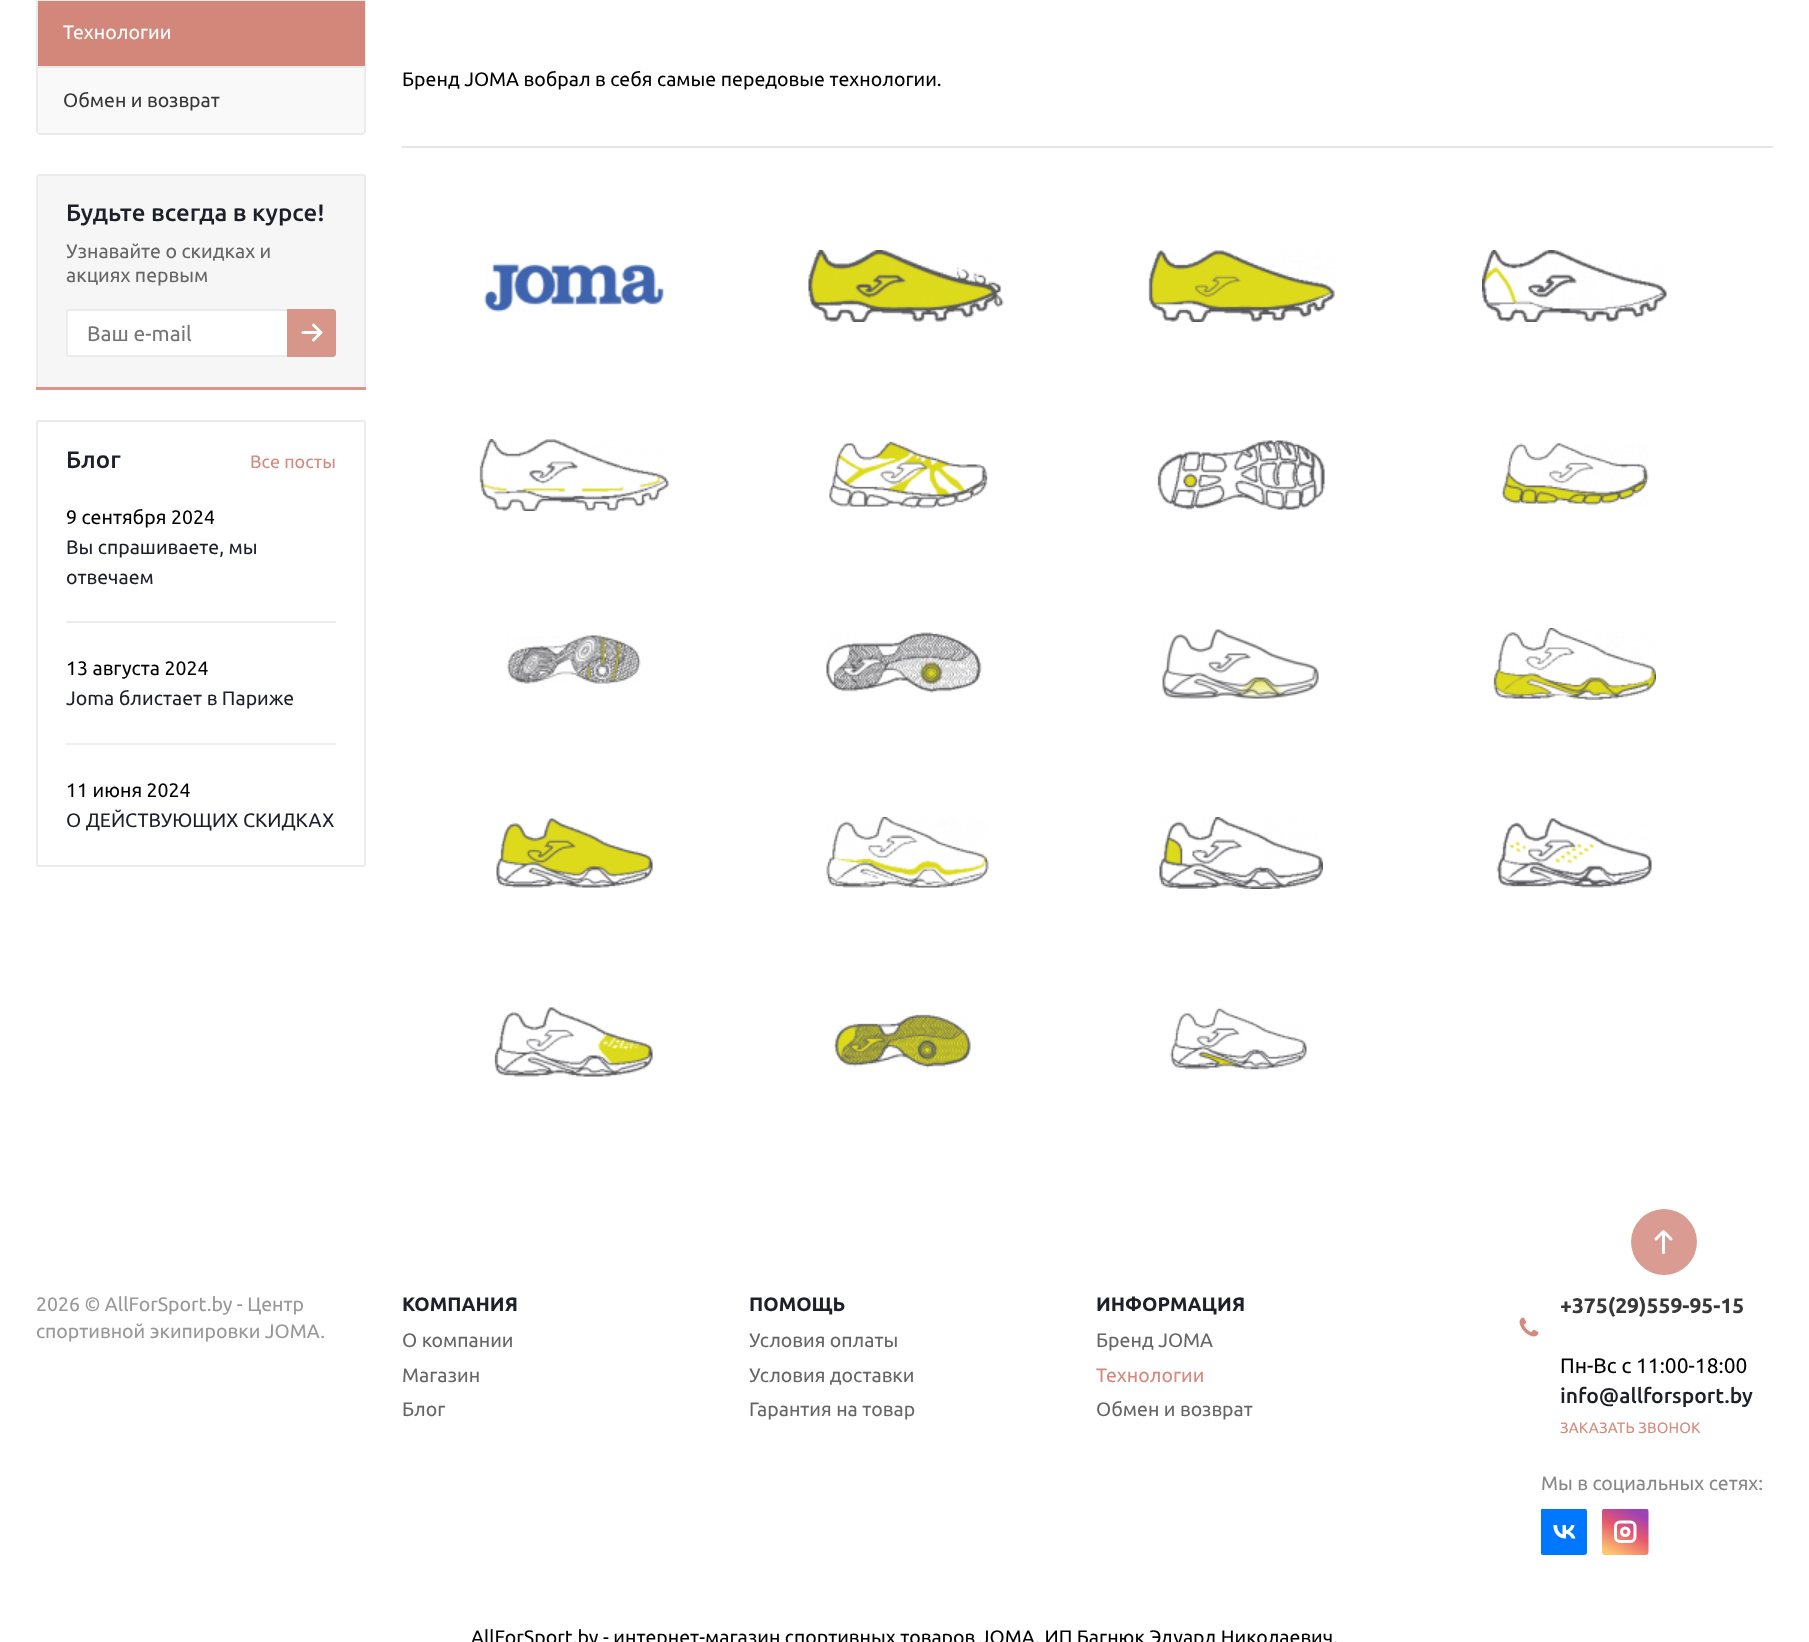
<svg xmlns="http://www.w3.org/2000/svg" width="1809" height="1642">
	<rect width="100%" height="100%" fill="#FFFFFF" />
	<rect x="38" y="1" width="327" height="65" fill="#D3877A" />
	<rect x="36" y="0" width="330" height="1" fill="#EAEBEC" />
	<rect x="365" y="0" width="1" height="66" fill="#EAEBEC" />
	<rect x="36" y="0" width="2" height="66" fill="#EAEBEC" />
	<text x="63" y="39" font-family="Ubuntu" font-size="19.5" fill="#FFFFFF">Технологии</text>
	<path d="M36 66H366V130C366 133 364 135 361 135H41C38 135 36 133 36 130Z" fill="#F9F9F9" />
	<path d="M36 66V130C36 133 38 135 41 135H361C364 135 366 133 366 130V66ZM38 68V133H364V68Z" fill="#EAEBEC" fill-rule="evenodd" />
	<text x="63" y="107" font-family="Ubuntu" font-size="19.5" fill="#383838">Обмен и возврат</text>
	<path d="M39 175H363C364 175 365 176 365 177V389H37V177C37 176 38 175 39 175Z" fill="#F6F6F7" stroke="#EAEBEC" stroke-width="2" />
	<text x="66" y="221" font-family="Ubuntu" font-size="24" font-weight="500" fill="#1D2029">Будьте всегда в курсе!</text>
	<g font-family="Ubuntu" font-size="19.5" fill="#666666">
		<text x="66" y="258">Узнавайте о скидках и</text>
		<text x="66" y="282">акциях первым</text>
	</g>
	<rect x="67" y="310" width="268" height="46" rx="2" fill="#FFFFFF" stroke="#EAEBEC" stroke-width="2" />
	<text x="87" y="341" font-family="Ubuntu" font-size="21" fill="#757575">Ваш e-mail</text>
	<path d="M287 309H333C334.5 309 336 310.5 336 312V354C336 355.5 334.5 357 333 357H287Z" fill="#D8958A" />
	<image x="301" y="323" width="22" height="19" href="assets/img1.png" />
	<rect x="36" y="387" width="330" height="3" fill="#D8958A" />
	<rect x="37" y="421" width="328" height="445" rx="2" fill="none" stroke="#EAEBEC" stroke-width="2" />
	<text x="66" y="468" font-family="Ubuntu" font-size="24" font-weight="500" fill="#1D2029">Блог</text>
	<text x="250" y="468" font-family="Ubuntu" font-size="18" fill="#D48A7E">Все посты</text>
	<rect x="66" y="621" width="270" height="2" fill="#EBEEF1" />
	<text x="66" y="524" font-family="Ubuntu" font-size="19.5" fill="#000000">9 сентября 2024</text>
	<g font-family="Ubuntu" font-size="19.5" fill="#1D2029">
		<text x="66" y="554">Вы спрашиваете, мы</text>
		<text x="66" y="584">отвечаем</text>
	</g>
	<rect x="66" y="743" width="270" height="2" fill="#EBEEF1" />
	<text x="66" y="675" font-family="Ubuntu" font-size="19.5" fill="#000000">13 августа 2024</text>
	<text x="66" y="705" font-family="Ubuntu" font-size="19.5" fill="#1D2029">Joma блистает в Париже</text>
	<text x="66" y="797" font-family="Ubuntu" font-size="19.5" fill="#000000">11 июня 2024</text>
	<text x="66" y="827" font-family="Ubuntu" font-size="19.5" fill="#1D2029">О ДЕЙСТВУЮЩИХ СКИДКАХ</text>
	<text x="402" y="86" font-family="Ubuntu" font-size="19.5" fill="#000000">Бренд JOMA вобрал в себя самые передовые технологии.</text>
	<rect x="402" y="146" width="1371" height="2" fill="#E5E5E5" />
	<image x="484" y="263" width="181" height="49" href="assets/img2.png" />
	<image x="808" y="250" width="196" height="72" href="assets/img3.png" />
	<image x="1148" y="250" width="187" height="72" href="assets/img4.png" />
	<image x="1482" y="250" width="185" height="72" href="assets/img5.png" />
	<image x="479" y="439" width="190" height="72" href="assets/img6.png" />
	<image x="829" y="441" width="159" height="68" href="assets/img7.png" />
	<image x="1157" y="440" width="168" height="70" href="assets/img8.png" />
	<image x="1501" y="442" width="148" height="64" href="assets/img9.png" />
	<image x="506" y="635" width="135" height="49" href="assets/img10.png" />
	<image x="826" y="632" width="156" height="61" href="assets/img11.png" />
	<image x="1162" y="629" width="157" height="70" href="assets/img12.png" />
	<image x="1493" y="628" width="163" height="72" href="assets/img13.png" />
	<image x="496" y="818" width="157" height="70" href="assets/img14.png" />
	<image x="826" y="817" width="163" height="71" href="assets/img15.png" />
	<image x="1159" y="817" width="164" height="72" href="assets/img16.png" />
	<image x="1496" y="818" width="156" height="70" href="assets/img17.png" />
	<image x="494" y="1007" width="159" height="70" href="assets/img18.png" />
	<image x="833" y="1014" width="138" height="54" href="assets/img19.png" />
	<image x="1169" y="1007" width="138" height="63" href="assets/img20.png" />
	<circle cx="1664" cy="1242" r="33" fill="#DA9C92" />
	<path d="M1663.5 1231.5V1252.5M1656 1239L1663.5 1231.5L1671 1239" fill="none" stroke="#FFFFFF" stroke-width="3" stroke-linecap="round" stroke-linejoin="round" />
	<g font-family="Ubuntu" font-size="19.5" fill="#989898">
		<text x="36" y="1311">2026 © AllForSport.by - Центр</text>
		<text x="36" y="1338">спортивной экипировки JOMA.</text>
	</g>
	<g font-family="Ubuntu" font-size="19.5" font-weight="700" fill="#1D2029">
		<text x="402" y="1311">КОМПАНИЯ</text>
		<text x="749" y="1311">ПОМОЩЬ</text>
		<text x="1096" y="1311">ИНФОРМАЦИЯ</text>
	</g>
	<g font-family="Ubuntu" font-size="19.5" fill="#666666">
		<text x="402" y="1347">О компании</text>
		<text x="402" y="1382">Магазин</text>
		<text x="402" y="1416">Блог</text>
		<text x="749" y="1347">Условия оплаты</text>
		<text x="749" y="1382">Условия доставки</text>
		<text x="749" y="1416">Гарантия на товар</text>
		<text x="1096" y="1347">Бренд JOMA</text>
	</g>
	<text x="1096" y="1382" font-family="Ubuntu" font-size="19.5" fill="#D48A7E">Технологии</text>
	<text x="1096" y="1416" font-family="Ubuntu" font-size="19.5" fill="#666666">Обмен и возврат</text>
	<image x="1519" y="1317" width="20" height="20" href="assets/img21.png" />
	<text x="1560" y="1313" font-family="Ubuntu" font-size="21" font-weight="700" fill="#383838">+375(29)559-95-15</text>
	<text x="1560" y="1373" font-family="Ubuntu" font-size="21" fill="#000000">Пн-Вс с 11:00-18:00</text>
	<text x="1560" y="1403" font-family="Ubuntu" font-size="21" font-weight="500" fill="#1D2029">info@allforsport.by</text>
	<text x="1560" y="1433" font-family="Ubuntu" font-size="15" letter-spacing="0.1" fill="#D48A7E">ЗАКАЗАТЬ ЗВОНОК</text>
	<text x="1541" y="1490" font-family="Ubuntu" font-size="19.5" fill="#888888">Мы в социальных сетях:</text>
	<image x="1541" y="1509" width="46" height="46" href="assets/img22.png" />
	<image x="1602" y="1509" width="47" height="46" href="assets/img23.png" />
	<text x="471" y="1644" font-family="Ubuntu" font-size="19.5" fill="#000000">AllForSport.by - интернет-магазин спортивных товаров JOMA. ИП Багнюк Эдуард Николаевич.</text>
</svg>
